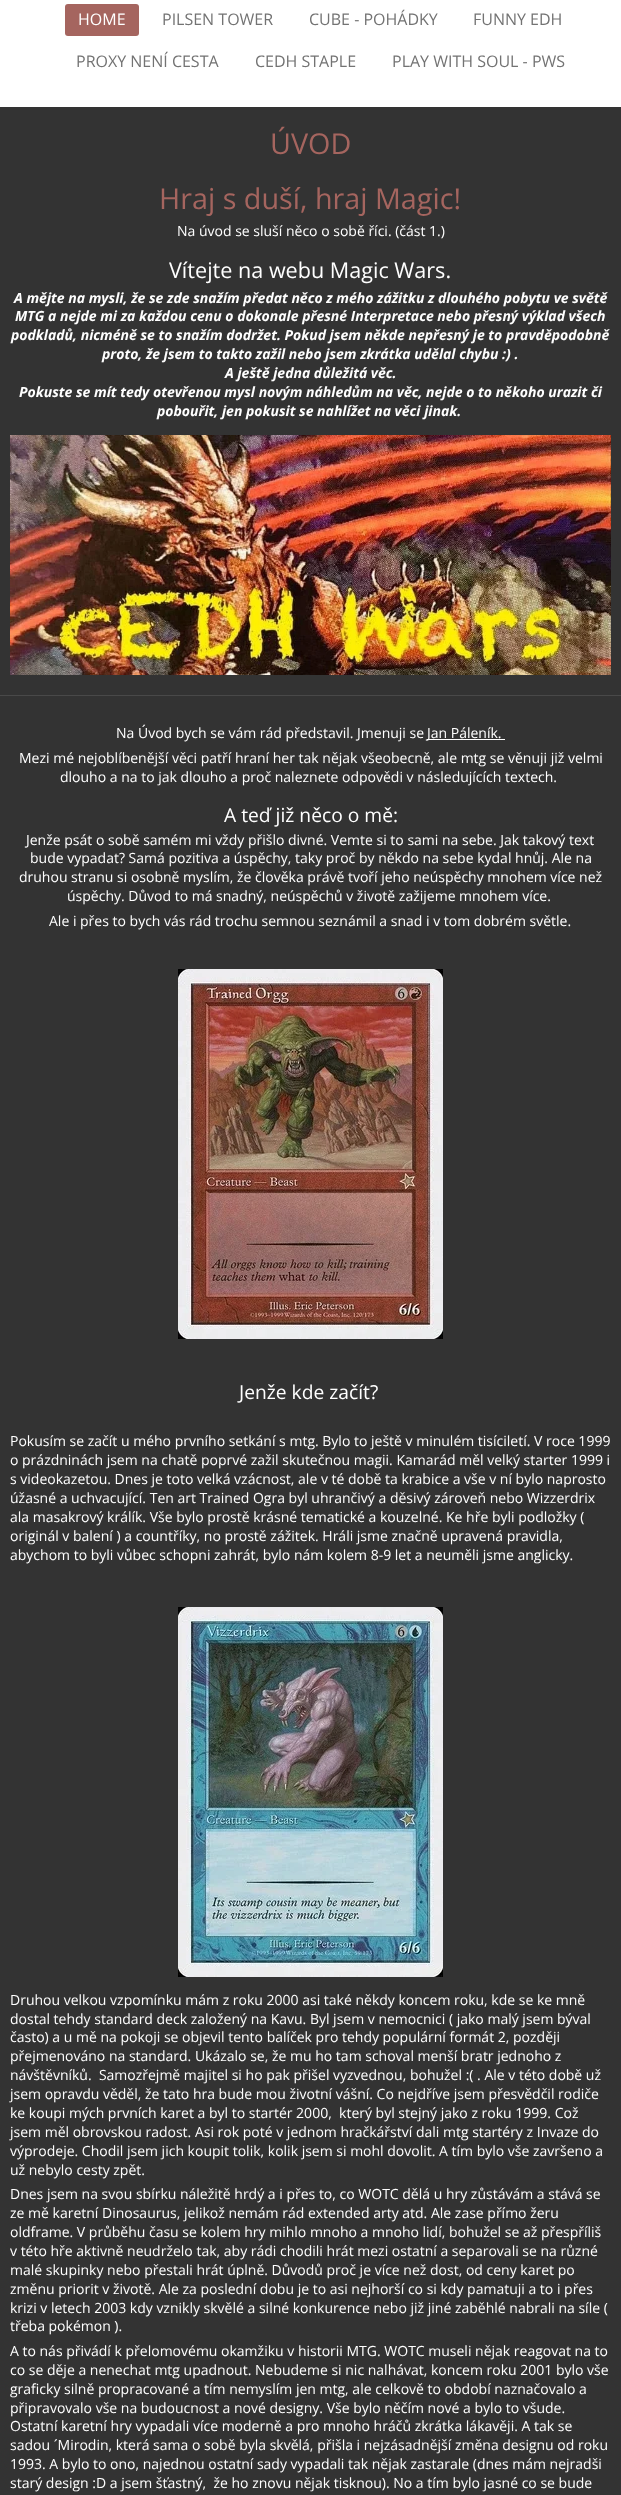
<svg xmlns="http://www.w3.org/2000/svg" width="621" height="2495">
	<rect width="100%" height="100%" fill="#FFFFFF" />
	<rect x="65" y="4" width="74" height="32" rx="3" fill="#A5655F" />
	<text x="78" y="25" font-family="Open Sans" font-size="16" fill="#FFFFFF">HOME</text>
	<g font-family="Open Sans" font-size="16" fill="#737373">
		<text x="162" y="25">PILSEN TOWER</text>
		<text x="309" y="25">CUBE - POHÁDKY</text>
		<text x="473" y="25">FUNNY EDH</text>
		<text x="76" y="67">PROXY NENÍ CESTA</text>
		<text x="255" y="67">CEDH STAPLE</text>
		<text x="392" y="67">PLAY WITH SOUL - PWS</text>
	</g>
	<rect x="0" y="107" width="621" height="588" fill="#333333" />
	<g font-family="Open Sans" font-size="28.75" fill="#A5655F">
		<text x="270" y="154">ÚVOD</text>
		<text x="159" y="209">Hraj s duší, hraj Magic!</text>
	</g>
	<text x="177" y="236" font-family="Open Sans" font-size="14" fill="#FFFFFF">Na úvod se sluší něco o sobě říci. (část 1.)</text>
	<text x="169" y="278" font-family="Open Sans" font-size="21.6" fill="#FFFFFF">Vítejte na webu Magic Wars.</text>
	<g font-family="Open Sans" font-size="14" font-weight="700" font-style="italic" fill="#FFFFFF">
		<text x="14" y="303">A mějte na mysli, že se zde snažím předat něco z mého zážitku z dlouhého pobytu ve světě</text>
		<text x="15" y="321">MTG a nejde mi za každou cenu o dokonale přesné Interpretace nebo přesný výklad všech</text>
		<text x="11" y="340">podkladů, nicméně se to snažím dodržet. Pokud jsem někde nepřesný je to pravděpodobně</text>
		<text x="102" y="359">proto, že jsem to takto zažil nebo jsem zkrátka udělal chybu :) .</text>
		<text x="225" y="378">A ještě jedna důležitá věc.</text>
		<text x="19" y="397">Pokuste se mít tedy otevřenou mysl novým náhledům na věc, nejde o to někoho urazit či</text>
		<text x="157" y="416">pobouřit, jen pokusit se nahlížet na věci jinak.</text>
	</g>
	<image x="10" y="435" width="601" height="240" href="assets/img1.png" />
	<rect x="0" y="696" width="621" height="1799" fill="#333333" />
	<rect x="0" y="695" width="621" height="1" fill="#494949" />
	<text x="116" y="738" font-family="Open Sans" font-size="14" fill="#FFFFFF">Na Úvod bych se vám rád představil. Jmenuji se</text>
	<rect x="427" y="739" width="78" height="1" fill="#FFFFFF" />
	<g font-family="Open Sans" font-size="14" fill="#FFFFFF">
		<text x="427" y="738">Jan Páleník.</text>
		<text x="19" y="763">Mezi mé nejoblíbenější věci patří hraní her tak nějak všeobecně, ale mtg se věnuji již velmi</text>
		<text x="60" y="782">dlouho a na to jak dlouho a proč naleznete odpovědi v následujících textech.</text>
	</g>
	<text x="224" y="822" font-family="Open Sans" font-size="19.25" fill="#FFFFFF">A teď již něco o mě:</text>
	<g font-family="Open Sans" font-size="14" fill="#FFFFFF">
		<text x="26" y="845">Jenže psát o sobě samém mi vždy přišlo divné. Vemte si to sami na sebe. Jak takový text</text>
		<text x="30" y="863">bude vypadat? Samá pozitiva a úspěchy, taky proč by někdo na sebe kydal hnůj. Ale na</text>
		<text x="19" y="882">druhou stranu si osobně myslím, že člověka právě tvoří jeho neúspěchy mnohem více než</text>
		<text x="67" y="901">úspěchy. Důvod to má snadný, neúspěchů v životě zažijeme mnohem více.</text>
		<text x="49" y="926">Ale i přes to bych vás rád trochu semnou seznámil a snad i v tom dobrém světle.</text>
	</g>
	<image x="178" y="969" width="265" height="370" href="assets/img2.png" />
	<text x="239" y="1399" font-family="Open Sans" font-size="19.25" fill="#FFFFFF">Jenže kde začít?</text>
	<g font-family="Open Sans" font-size="14" fill="#FFFFFF">
		<text x="10" y="1446">Pokusím se začít u mého prvního setkání s mtg. Bylo to ještě v minulém tisíciletí. V roce 1999</text>
		<text x="10" y="1465">o prázdninách jsem na chatě poprvé zažil skutečnou magii. Kamarád měl velký starter 1999 i</text>
		<text x="10" y="1484">s videokazetou. Dnes je toto velká vzácnost, ale v té době ta krabice a vše v ní bylo naprosto</text>
		<text x="10" y="1503">úžasné a uchvacující. Ten art Trained Ogra byl uhrančivý a děsivý zároveň nebo Wizzerdrix</text>
		<text x="10" y="1522">ala masakrový králík. Vše bylo prostě krásné tematické a kouzelné. Ke hře byli podložky (</text>
		<text x="10" y="1541">originál v balení ) a countříky, no prostě zážitek. Hráli jsme značně upravená pravidla,</text>
		<text x="10" y="1560">abychom to byli vůbec schopni zahrát, bylo nám kolem 8-9 let a neuměli jsme anglicky.</text>
	</g>
	<image x="178" y="1607" width="265" height="370" href="assets/img3.png" />
	<g font-family="Open Sans" font-size="14" fill="#FFFFFF">
		<text x="10" y="2005">Druhou velkou vzpomínku mám z roku 2000 asi také někdy koncem roku, kde se ke mně</text>
		<text x="10" y="2024">dostal tehdy standard deck založený na Kavu. Byl jsem v nemocnici ( jako malý jsem býval</text>
		<text x="10" y="2042">často) a u mě na pokoji se objevil tento balíček pro tehdy populární formát 2, později</text>
		<text x="10" y="2061">přejmenováno na standard. Ukázalo se, že mu ho tam schoval menší bratr jednoho z</text>
		<text x="10" y="2080" xml:space="preserve">návštěvníků.  Samozřejmě majitel si ho pak přišel vyzvednou, bohužel :( . Ale v této době už</text>
		<text x="10" y="2099">jsem opravdu věděl, že tato hra bude mou životní vášní. Co nejdříve jsem přesvědčil rodiče</text>
		<text x="10" y="2118" xml:space="preserve">ke koupi mých prvních karet a byl to startér 2000,  který byl stejný jako z roku 1999. Což</text>
		<text x="10" y="2137">jsem měl obrovskou radost. Asi rok poté v jednom hračkářství dali mtg startéry z Invaze do</text>
		<text x="10" y="2156">výprodeje. Chodil jsem jich koupit tolik, kolik jsem si mohl dovolit. A tím bylo vše završeno a</text>
		<text x="10" y="2175">už nebylo cesty zpět.</text>
		<text x="10" y="2199">Dnes jsem na svou sbírku náležitě hrdý a i přes to, co WOTC dělá u hry zůstávám a stává se</text>
		<text x="10" y="2218">ze mě karetní Dinosaurus, jelikož nemám rád extended arty atd. Ale zase přímo žeru</text>
		<text x="10" y="2237">oldframe. V průběhu času se kolem hry mihlo mnoho a mnoho lidí, bohužel se až přespříliš</text>
		<text x="10" y="2256">v této hře aktivně neudrželo tak, aby rádi chodili hrát mezi ostatní a separovali se na různé</text>
		<text x="10" y="2275">malé skupinky nebo přestali hrát úplně. Důvodů proč je více než dost, od ceny karet po</text>
		<text x="10" y="2294">změnu priorit v životě. Ale za poslední dobu je to asi nejhorší co si kdy pamatuji a to i přes</text>
		<text x="10" y="2313">krizi v letech 2003 kdy vznikly skvělé a silné konkurence nebo již jiné zaběhlé nabrali na síle (</text>
		<text x="10" y="2331">třeba pokémon ).</text>
		<text x="10" y="2356">A to nás přivádí k přelomovému okamžiku v historii MTG. WOTC museli nějak reagovat na to</text>
		<text x="10" y="2375">co se děje a nenechat mtg upadnout. Nebudeme si nic nalhávat, koncem roku 2001 bylo vše</text>
		<text x="10" y="2394">graficky silně propracované a tím nemyslím jen mtg, ale celkově to období naznačovalo a</text>
		<text x="10" y="2413">připravovalo vše na budoucnost a nové designy. Vše bylo něčím nové a bylo to všude.</text>
		<text x="10" y="2431">Ostatní karetní hry vypadali více moderně a pro mnoho hráčů zkrátka lákavěji. A tak se</text>
		<text x="10" y="2450">sadou ´Mirodin, která sama o sobě byla skvělá, přišla i nejzásadnější změna designu od roku</text>
		<text x="10" y="2469">1993. A bylo to ono, najednou ostatní sady vypadali tak nějak zastarale (dnes mám nejradši</text>
		<text x="10" y="2488" xml:space="preserve">starý design :D a jsem šťastný,  že ho znovu nějak tisknou). No a tím bylo jasné co se bude</text>
	</g>
</svg>
